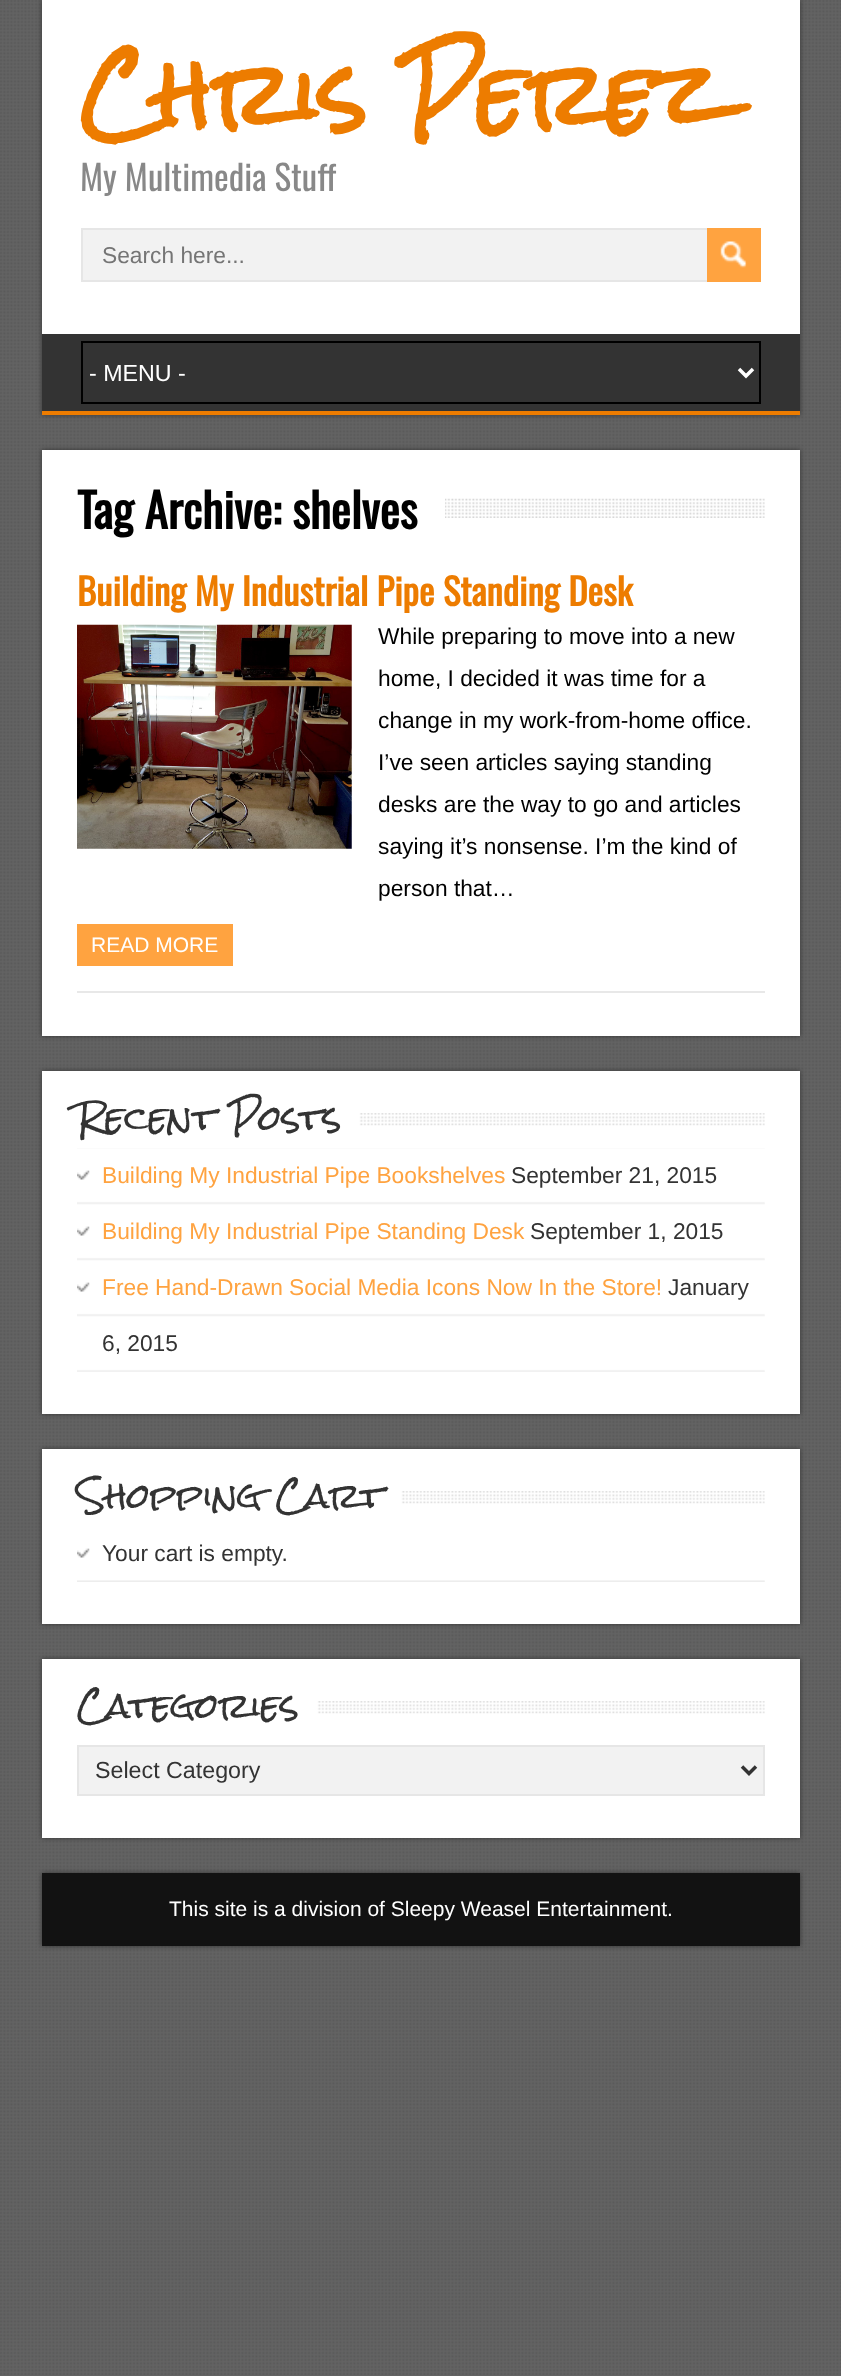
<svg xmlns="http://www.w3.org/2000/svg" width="841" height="2376">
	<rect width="100%" height="100%" fill="#636363" />
	<image x="0" y="0" width="841" height="2375" href="assets/img1.png" />
	<rect x="42" y="0" width="758" height="415" fill="#333333" filter="blur(2.5px)" />
	<rect x="42" y="0" width="758" height="334" fill="#FFFFFF" />
	<text x="80" y="128" font-family="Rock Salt" font-size="84" font-weight="700" fill="#ED7C00">Chris Perez</text>
	<text x="80" y="191" font-family="Oswald" font-size="35" fill="#888888">My Multimedia Stuff</text>
	<rect x="83" y="230" width="624" height="50" fill="#F2F2F2" />
	<rect x="82" y="229" width="675" height="52" fill="none" stroke="#E6E6E6" stroke-width="2" />
	<text x="102" y="263" font-family="Liberation Sans" font-size="22.75" fill="#757575">Search here...</text>
	<rect x="707" y="228" width="54" height="54" fill="#FFA340" />
	<image x="720" y="241" width="27" height="27" href="assets/img2.png" />
	<rect x="42" y="334" width="758" height="77" fill="#333333" />
	<rect x="42" y="411" width="758" height="4" fill="#ED7C00" />
	<rect x="82" y="342" width="678" height="61" fill="none" stroke="#000000" stroke-width="2" />
	<path d="M739 369L746 376L753 369" fill="none" stroke="#FFFFFF" stroke-width="3.5" />
	<text x="89" y="381" font-family="Liberation Sans" font-size="23.25" fill="#FFFFFF">- MENU -</text>
	<rect x="42" y="450" width="758" height="586" fill="#333333" filter="blur(2.5px)" />
	<rect x="42" y="450" width="758" height="586" fill="#FFFFFF" />
	<image x="445" y="498" width="320" height="20" href="assets/img3.png" />
	<text x="77" y="529" font-family="Oswald" font-size="47.25" font-weight="700" fill="#000000">Tag Archive: shelves</text>
	<rect x="77" y="991" width="688" height="2" fill="#E8E8E8" />
	<text x="77" y="606" font-family="Oswald" font-size="36.75" font-weight="700" fill="#ED7C00">Building My Industrial Pipe Standing Desk</text>
	<image x="77" y="624" width="275" height="225" href="assets/img4.png" />
	<g font-family="Liberation Sans" font-size="22.75" fill="#000000">
		<text x="378" y="644">While preparing to move into a new</text>
		<text x="378" y="686">home, I decided it was time for a</text>
		<text x="378" y="728">change in my work-from-home office.</text>
		<text x="378" y="770">I’ve seen articles saying standing</text>
		<text x="378" y="812">desks are the way to go and articles</text>
		<text x="378" y="854">saying it’s nonsense. I’m the kind of</text>
		<text x="378" y="896">person that…</text>
	</g>
	<rect x="77" y="924" width="156" height="42" fill="#FFA340" />
	<text x="91" y="952" font-family="Liberation Sans" font-size="21" fill="#FFFFFF">READ MORE</text>
	<rect x="42" y="1071" width="758" height="343" fill="#333333" filter="blur(2.5px)" />
	<rect x="42" y="1071" width="758" height="343" fill="#FFFFFF" />
	<image x="359" y="1113" width="406" height="13" href="assets/img5.png" />
	<text x="77" y="1131" font-family="Rock Salt" font-size="33.25" fill="#333333">Recent Posts</text>
	<image x="77" y="1148" width="688" height="224" href="assets/img6.png" />
	<image x="77" y="1170" width="13" height="10" href="assets/img7.png" />
	<text x="102" y="1183" font-family="Liberation Sans" font-size="22.75" fill="#FFA340">Building My Industrial Pipe Bookshelves</text>
	<text x="511" y="1183" font-family="Liberation Sans" font-size="22.75" fill="#333333">September 21, 2015</text>
	<image x="77" y="1226" width="13" height="10" href="assets/img7.png" />
	<text x="102" y="1239" font-family="Liberation Sans" font-size="22.75" fill="#FFA340">Building My Industrial Pipe Standing Desk</text>
	<text x="530" y="1239" font-family="Liberation Sans" font-size="22.75" fill="#333333">September 1, 2015</text>
	<image x="77" y="1282" width="13" height="10" href="assets/img7.png" />
	<text x="102" y="1295" font-family="Liberation Sans" font-size="22.75" fill="#FFA340">Free Hand-Drawn Social Media Icons Now In the Store!</text>
	<g font-family="Liberation Sans" font-size="22.75" fill="#333333">
		<text x="668" y="1295">January</text>
		<text x="102" y="1351">6, 2015</text>
	</g>
	<rect x="42" y="1449" width="758" height="175" fill="#333333" filter="blur(2.5px)" />
	<rect x="42" y="1449" width="758" height="175" fill="#FFFFFF" />
	<image x="401" y="1491" width="364" height="13" href="assets/img8.png" />
	<text x="77" y="1509" font-family="Rock Salt" font-size="33.25" fill="#333333">Shopping Cart</text>
	<image x="77" y="1580" width="688" height="2" href="assets/img9.png" />
	<image x="77" y="1548" width="13" height="10" href="assets/img7.png" />
	<text x="102" y="1561" font-family="Liberation Sans" font-size="22.75" fill="#333333">Your cart is empty.</text>
	<rect x="42" y="1659" width="758" height="179" fill="#333333" filter="blur(2.5px)" />
	<rect x="42" y="1659" width="758" height="179" fill="#FFFFFF" />
	<image x="317" y="1701" width="448" height="13" href="assets/img10.png" />
	<text x="77" y="1719" font-family="Rock Salt" font-size="33.25" fill="#333333">Categories</text>
	<rect x="78" y="1746" width="686" height="49" fill="#F2F2F2" stroke="#E6E6E6" stroke-width="2" />
	<path d="M742 1766.5L749 1773.5L756 1766.5" fill="none" stroke="#333333" stroke-width="3.5" />
	<text x="95" y="1778" font-family="Liberation Sans" font-size="23.25" fill="#333333">Select Category</text>
	<rect x="42" y="1873" width="758" height="73" fill="#333333" filter="blur(2.5px)" />
	<rect x="42" y="1873" width="758" height="73" fill="#121212" />
	<text x="169" y="1916" font-family="Liberation Sans" font-size="21" fill="#FFFFFF">This site is a division of Sleepy Weasel Entertainment.</text>
</svg>
